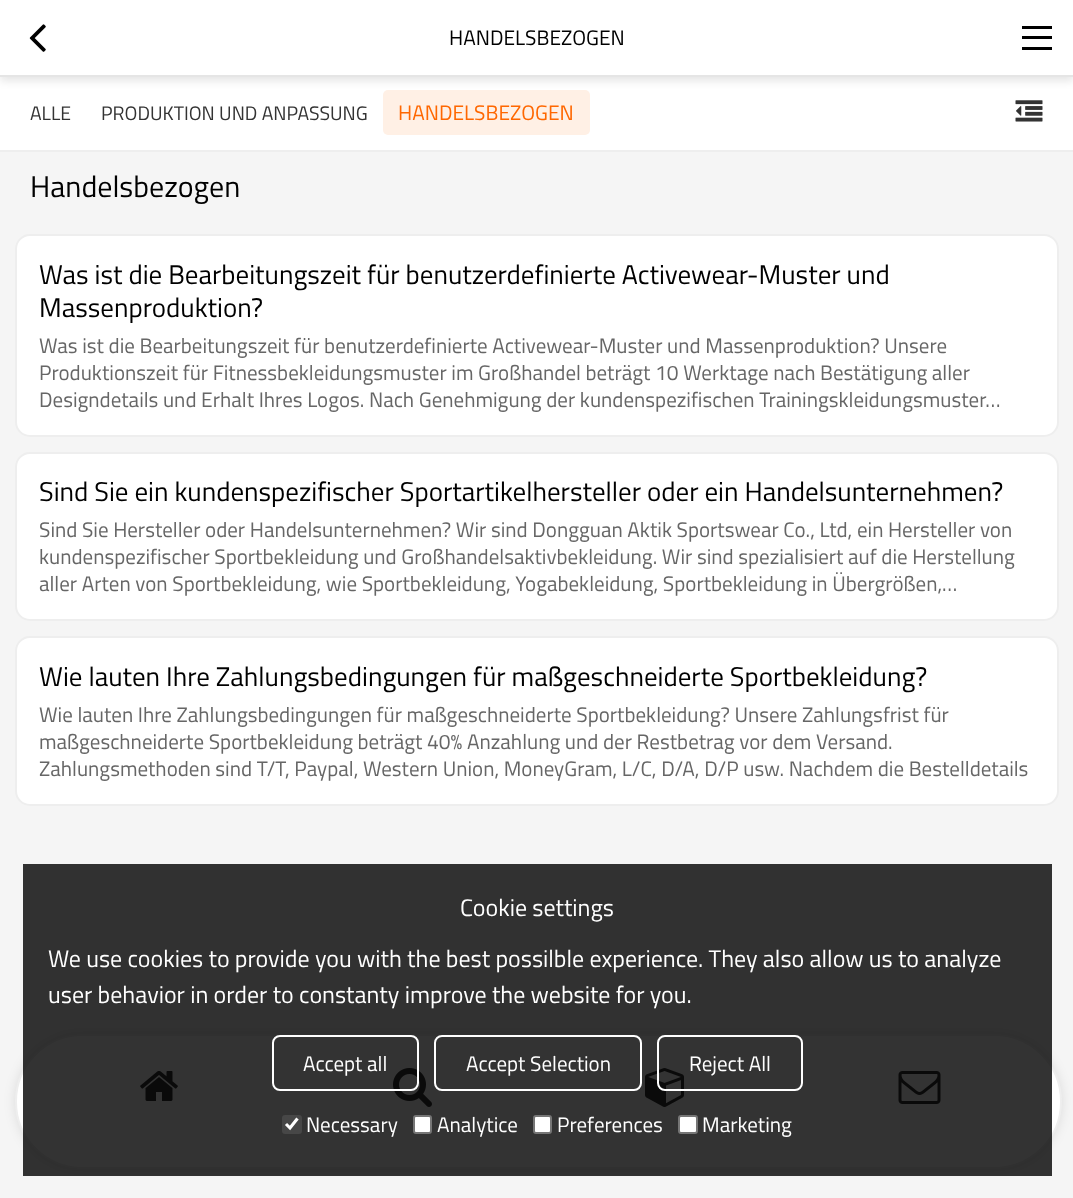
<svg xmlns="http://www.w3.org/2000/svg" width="1073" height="1198">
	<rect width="100%" height="100%" fill="#F5F5F5" />
	<rect x="0" y="77" width="1073" height="73" fill="#FFFFFF" />
	<rect x="383" y="90" width="207" height="45" rx="5" fill="#FFF0E5" />
	<rect x="0" y="5" width="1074" height="76" fill="#000000" fill-opacity="0.1" filter="blur(4px)" />
	<rect x="0" y="0" width="1073" height="75" fill="#FFFFFF" />
	<rect x="0" y="75" width="1073" height="2" fill="#E5E5E5" />
	<image x="29" y="24" width="17" height="28" href="assets/img1.png" />
	<text x="449" y="45" font-family="Titillium Web" font-size="21" fill="#000000">HANDELSBEZOGEN</text>
	<rect x="1022" y="26" width="30" height="3" fill="#000000" />
	<rect x="1022" y="36" width="30" height="3" fill="#000000" />
	<rect x="1022" y="47" width="30" height="3" fill="#000000" />
	<rect x="0" y="150" width="1073" height="2" fill="#EEEEEE" />
	<g font-family="Titillium Web" font-size="19.5" fill="#333333">
		<text x="30" y="120">ALLE</text>
		<text x="101" y="120">PRODUKTION UND ANPASSUNG</text>
	</g>
	<text x="398" y="120" font-family="Titillium Web" font-size="21" fill="#FF6700">HANDELSBEZOGEN</text>
	<image x="1015" y="100" width="28" height="22" href="assets/img2.png" />
	<text x="30" y="197" font-family="Titillium Web" font-size="30" fill="#000000">Handelsbezogen</text>
	<rect x="16" y="235" width="1042" height="201" rx="14" fill="#FFFFFF" stroke="#EEEEEE" stroke-width="2" />
	<g font-family="Titillium Web" font-size="27" fill="#000000">
		<text x="39" y="284">Was ist die Bearbeitungszeit für benutzerdefinierte Activewear-Muster und</text>
		<text x="39" y="317">Massenproduktion?</text>
	</g>
	<g font-family="Titillium Web" font-size="21" fill="#666666">
		<text x="39" y="353">Was ist die Bearbeitungszeit für benutzerdefinierte Activewear-Muster und Massenproduktion? Unsere</text>
		<text x="39" y="380">Produktionszeit für Fitnessbekleidungsmuster im Großhandel beträgt 10 Werktage nach Bestätigung aller</text>
		<text x="39" y="407">Designdetails und Erhalt Ihres Logos. Nach Genehmigung der kundenspezifischen Trainingskleidungsmuster…</text>
	</g>
	<rect x="16" y="453" width="1042" height="167" rx="14" fill="#FFFFFF" stroke="#EEEEEE" stroke-width="2" />
	<text x="39" y="501" font-family="Titillium Web" font-size="27" fill="#000000">Sind Sie ein kundenspezifischer Sportartikelhersteller oder ein Handelsunternehmen?</text>
	<g font-family="Titillium Web" font-size="21" fill="#666666">
		<text x="39" y="537">Sind Sie Hersteller oder Handelsunternehmen? Wir sind Dongguan Aktik Sportswear Co., Ltd, ein Hersteller von</text>
		<text x="39" y="564">kundenspezifischer Sportbekleidung und Großhandelsaktivbekleidung. Wir sind spezialisiert auf die Herstellung</text>
		<text x="39" y="591">aller Arten von Sportbekleidung, wie Sportbekleidung, Yogabekleidung, Sportbekleidung in Übergrößen,…</text>
	</g>
	<rect x="16" y="637" width="1042" height="168" rx="14" fill="#FFFFFF" stroke="#EEEEEE" stroke-width="2" />
	<text x="39" y="686" font-family="Titillium Web" font-size="27" fill="#000000">Wie lauten Ihre Zahlungsbedingungen für maßgeschneiderte Sportbekleidung?</text>
	<g font-family="Titillium Web" font-size="21" fill="#666666">
		<text x="39" y="722">Wie lauten Ihre Zahlungsbedingungen für maßgeschneiderte Sportbekleidung? Unsere Zahlungsfrist für</text>
		<text x="39" y="749">maßgeschneiderte Sportbekleidung beträgt 40% Anzahlung und der Restbetrag vor dem Versand.</text>
		<text x="39" y="776">Zahlungsmethoden sind T/T, Paypal, Western Union, MoneyGram, L/C, D/A, D/P usw. Nachdem die Bestelldetails</text>
	</g>
	<rect x="15" y="1034" width="1047" height="135" rx="67.5" fill="#000000" fill-opacity="0.1" filter="blur(6px)" />
	<rect x="16" y="1035" width="1045" height="133" rx="66.5" fill="#FFFFFF" stroke="#EEEEEE" stroke-width="2" />
	<image x="140" y="1071" width="38" height="30" href="assets/img3.png" />
	<image x="393" y="1068" width="39" height="39" href="assets/img4.png" />
	<image x="645" y="1068" width="39" height="39" href="assets/img5.png" />
	<image x="898" y="1071" width="43" height="33" href="assets/img6.png" />
	<rect x="23" y="864" width="1029" height="312" fill="#000000" fill-opacity="0.8" />
	<g font-family="Titillium Web" font-size="24" fill="#FFFFFF">
		<text x="460" y="916">Cookie settings</text>
		<text x="48" y="967">We use cookies to provide you with the best possilble experience. They also allow us to analyze</text>
		<text x="48" y="1003">user behavior in order to constanty improve the website for you.</text>
	</g>
	<rect x="273" y="1036" width="145" height="54" rx="7" fill="none" stroke="#FFFFFF" stroke-width="2" />
	<text x="303" y="1071" font-family="Titillium Web" font-size="21" fill="#FFFFFF">Accept all</text>
	<rect x="435" y="1036" width="206" height="54" rx="7" fill="none" stroke="#FFFFFF" stroke-width="2" />
	<text x="466" y="1071" font-family="Titillium Web" font-size="21" fill="#FFFFFF">Accept Selection</text>
	<rect x="658" y="1036" width="144" height="54" rx="7" fill="none" stroke="#FFFFFF" stroke-width="2" />
	<text x="689" y="1071" font-family="Titillium Web" font-size="21" fill="#FFFFFF">Reject All</text>
	<rect x="282" y="1115" width="20" height="19" rx="3" fill="#474747" />
	<path d="M286 1124L290 1128L297.5 1118.5" fill="none" stroke="#FFFFFF" stroke-width="3.1" />
	<text x="306" y="1132" font-family="Titillium Web" font-size="21" fill="#FFFFFF">Necessary</text>
	<rect x="414" y="1116" width="17" height="17" rx="2" fill="#FFFFFF" stroke="#767676" stroke-width="2" />
	<text x="437" y="1132" font-family="Titillium Web" font-size="21" fill="#FFFFFF">Analytice</text>
	<rect x="534" y="1116" width="17" height="17" rx="2" fill="#FFFFFF" stroke="#767676" stroke-width="2" />
	<text x="557" y="1132" font-family="Titillium Web" font-size="21" fill="#FFFFFF">Preferences</text>
	<rect x="679" y="1116" width="18" height="17" rx="2" fill="#FFFFFF" stroke="#767676" stroke-width="2" />
	<text x="702" y="1132" font-family="Titillium Web" font-size="21" fill="#FFFFFF">Marketing</text>
</svg>
